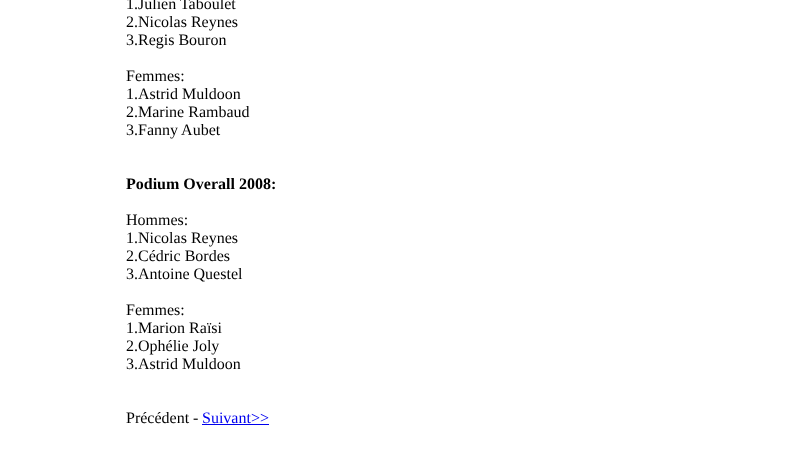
<svg xmlns="http://www.w3.org/2000/svg" width="787" height="474">
	<rect width="100%" height="100%" fill="#FFFFFF" />
	<g font-family="Liberation Serif" font-size="16" fill="#000000">
		<text x="126" y="9">1.Julien Taboulet</text>
		<text x="126" y="27">2.Nicolas Reynes</text>
		<text x="126" y="45">3.Regis Bouron</text>
		<text x="126" y="81">Femmes:</text>
		<text x="126" y="99">1.Astrid Muldoon</text>
		<text x="126" y="117">2.Marine Rambaud</text>
		<text x="126" y="135">3.Fanny Aubet</text>
	</g>
	<text x="126" y="189" font-family="Liberation Serif" font-size="16" font-weight="700" fill="#000000">Podium Overall 2008:</text>
	<g font-family="Liberation Serif" font-size="16" fill="#000000">
		<text x="126" y="225">Hommes:</text>
		<text x="126" y="243">1.Nicolas Reynes</text>
		<text x="126" y="261">2.Cédric Bordes</text>
		<text x="126" y="279">3.Antoine Questel</text>
		<text x="126" y="315">Femmes:</text>
		<text x="126" y="333">1.Marion Raïsi</text>
		<text x="126" y="351">2.Ophélie Joly</text>
		<text x="126" y="369">3.Astrid Muldoon</text>
		<text x="126" y="423">Précédent -</text>
	</g>
	<text x="202" y="423" font-family="Liberation Serif" font-size="16" fill="#0000EE">Suivant&gt;&gt;</text>
	<rect x="202" y="424" width="67" height="1" fill="#0000EE" />
</svg>
